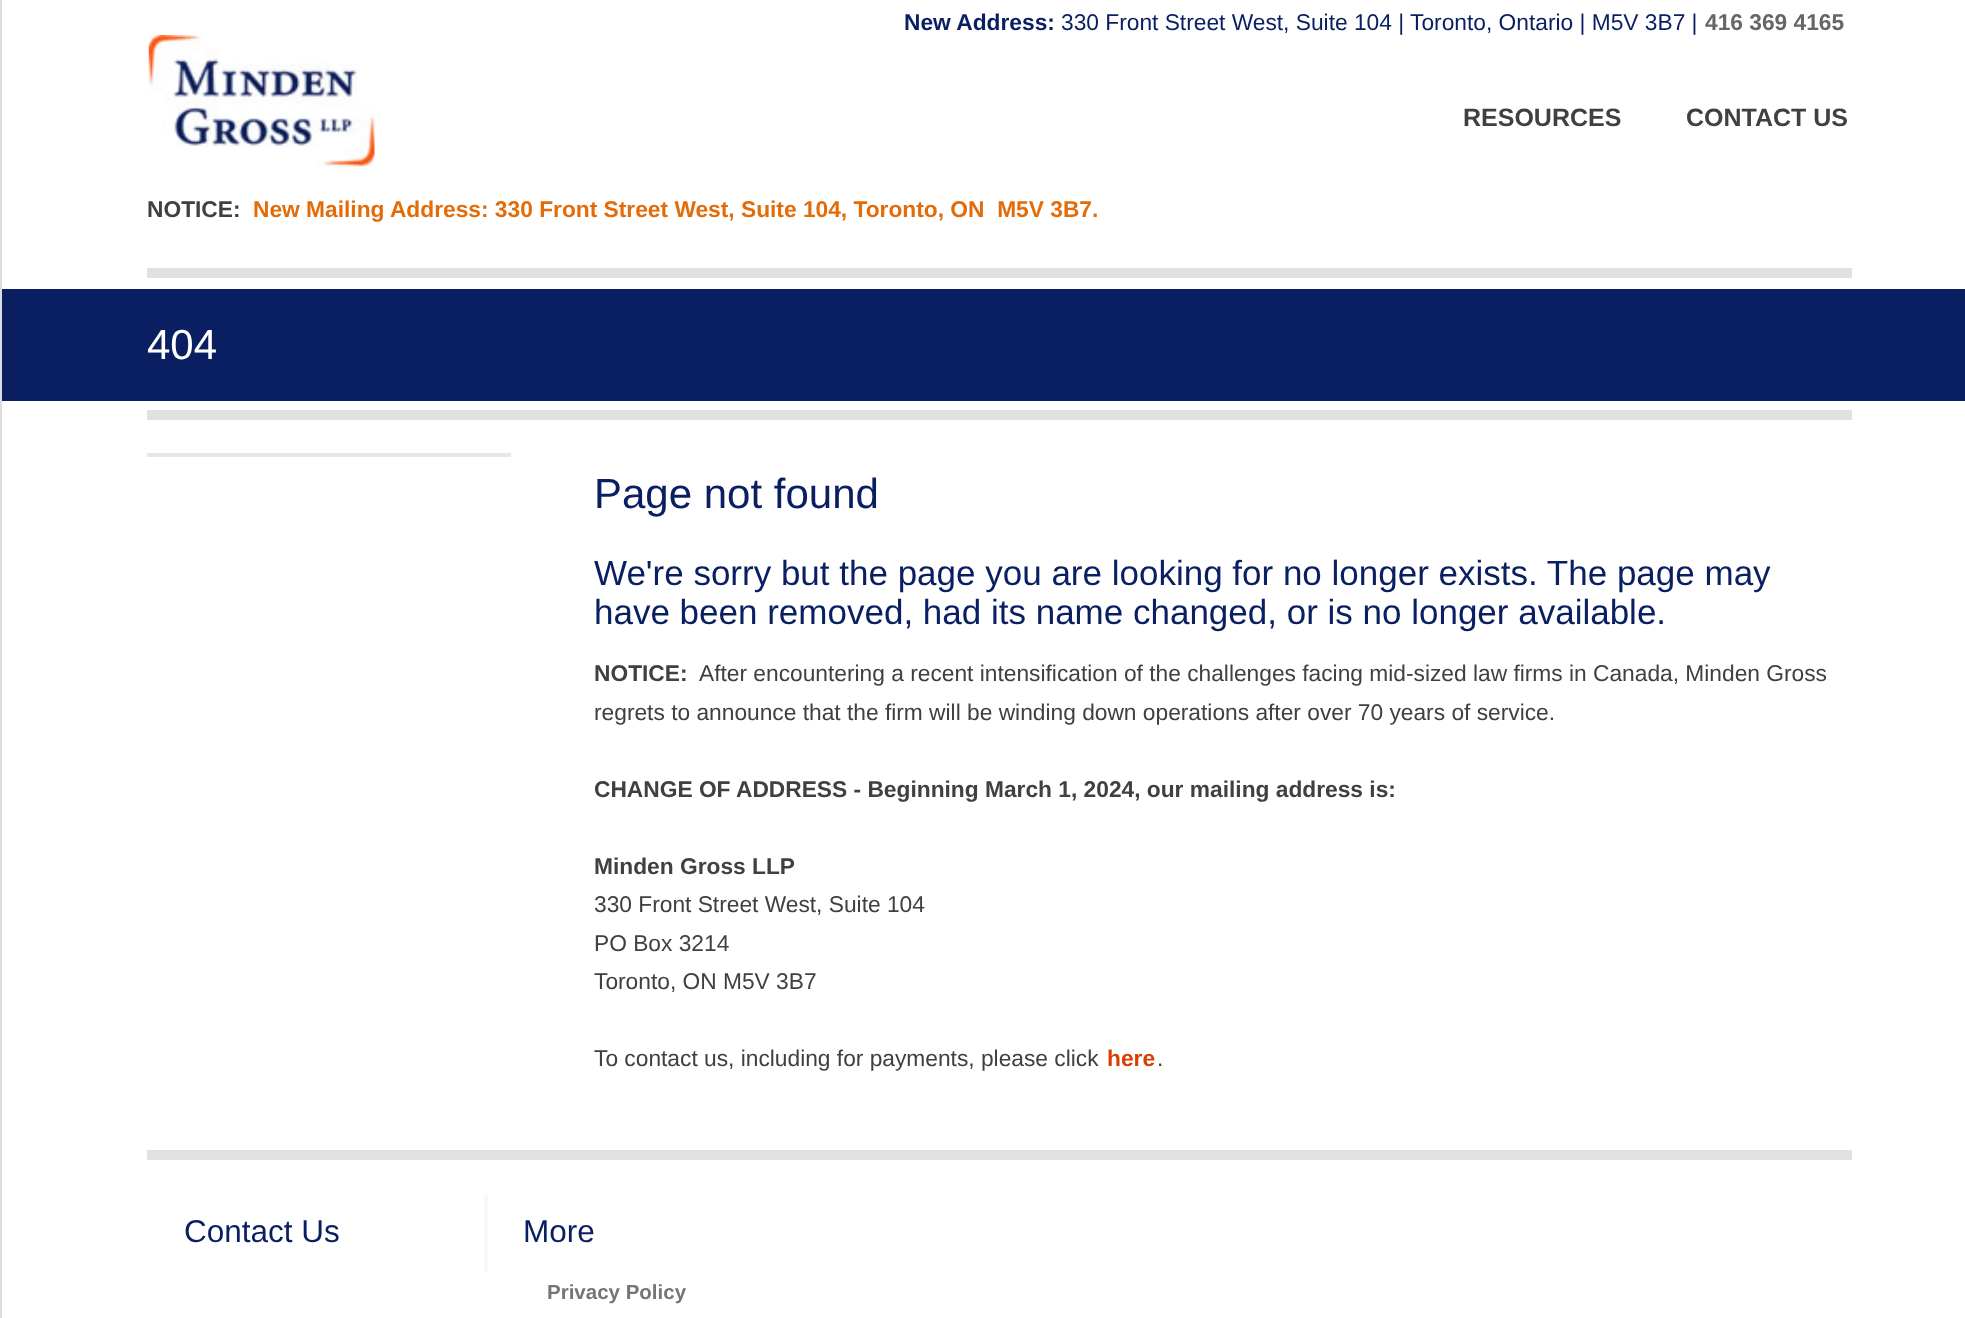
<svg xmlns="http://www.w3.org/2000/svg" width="1965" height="1318">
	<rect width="100%" height="100%" fill="#FFFFFF" />
	<rect x="0" y="0" width="2" height="1318" fill="#DDDDDD" />
	<rect x="147" y="268" width="1705" height="10" fill="#E1E1E1" />
	<image x="148" y="35" width="227" height="132" href="assets/img1.png" />
	<text x="904" y="30" font-family="Liberation Sans" font-size="22.75" font-weight="700" fill="#0A1F62">New Address:</text>
	<text x="1061" y="30" font-family="Liberation Sans" font-size="22.75" fill="#0A1F62">330 Front Street West, Suite 104 | Toronto, Ontario | M5V 3B7 |</text>
	<text x="1705" y="30" font-family="Liberation Sans" font-size="22.75" font-weight="700" fill="#666666">416 369 4165</text>
	<g font-family="Liberation Sans" font-size="25" font-weight="700" fill="#404040">
		<text x="1463" y="126">RESOURCES</text>
		<text x="1686" y="126">CONTACT US</text>
	</g>
	<text x="147" y="217" font-family="Liberation Sans" font-size="22.75" font-weight="700" fill="#404040">NOTICE:</text>
	<text x="253" y="217" font-family="Liberation Sans" font-size="22.75" font-weight="700" fill="#E36C09" xml:space="preserve">New Mailing Address: 330 Front Street West, Suite 104, Toronto, ON  M5V 3B7.</text>
	<rect x="2" y="289" width="1963" height="112" fill="#0A1F62" />
	<text x="147" y="359" font-family="Liberation Sans" font-size="42" fill="#FFFFFF">404</text>
	<rect x="147" y="410" width="1705" height="10" fill="#E1E1E1" />
	<rect x="147" y="453" width="364" height="4" fill="#E6E6E6" />
	<text x="594" y="508" font-family="Liberation Sans" font-size="42" fill="#0A1F62">Page not found</text>
	<g font-family="Liberation Sans" font-size="35" fill="#0A1F62">
		<text x="594" y="585">We're sorry but the page you are looking for no longer exists. The page may</text>
		<text x="594" y="624">have been removed, had its name changed, or is no longer available.</text>
	</g>
	<text x="594" y="681" font-family="Liberation Sans" font-size="22.75" font-weight="700" fill="#404040">NOTICE:</text>
	<g font-family="Liberation Sans" font-size="22.75" fill="#404040">
		<text x="699" y="681">After encountering a recent intensification of the challenges facing mid-sized law firms in Canada, Minden Gross</text>
		<text x="594" y="720">regrets to announce that the firm will be winding down operations after over 70 years of service.</text>
	</g>
	<g font-family="Liberation Sans" font-size="22.75" font-weight="700" fill="#404040">
		<text x="594" y="797">CHANGE OF ADDRESS - Beginning March 1, 2024, our mailing address is:</text>
		<text x="594" y="874">Minden Gross LLP</text>
	</g>
	<g font-family="Liberation Sans" font-size="22.75" fill="#404040">
		<text x="594" y="912">330 Front Street West, Suite 104</text>
		<text x="594" y="951">PO Box 3214</text>
		<text x="594" y="989">Toronto, ON M5V 3B7</text>
		<text x="594" y="1066">To contact us, including for payments, please click</text>
	</g>
	<text x="1107" y="1066" font-family="Liberation Sans" font-size="22.75" font-weight="700" fill="#D93F02">here</text>
	<text x="1157" y="1066" font-family="Liberation Sans" font-size="22.75" fill="#404040">.</text>
	<rect x="147" y="1150" width="1705" height="10" fill="#E1E1E1" />
	<rect x="484" y="1195" width="4" height="77" fill="#F8F8F8" />
	<g font-family="Liberation Sans" font-size="31.5" fill="#0A1F62">
		<text x="184" y="1242">Contact Us</text>
		<text x="523" y="1242">More</text>
	</g>
	<text x="547" y="1299" font-family="Liberation Sans" font-size="20.5" font-weight="700" fill="#757575">Privacy Policy</text>
</svg>
